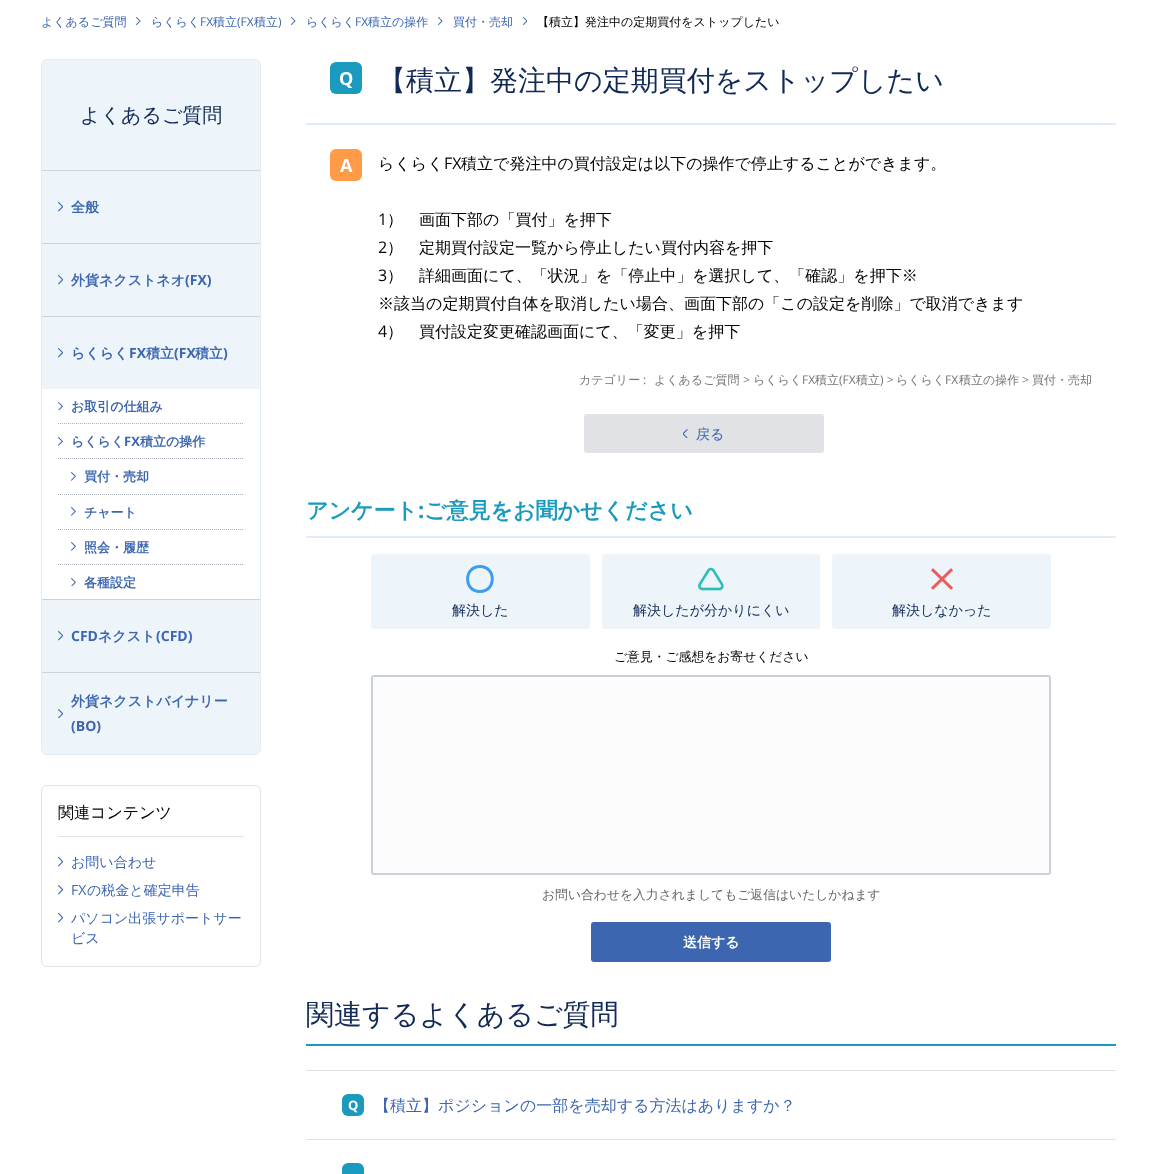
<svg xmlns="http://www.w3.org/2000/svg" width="1162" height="1174">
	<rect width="100%" height="100%" fill="#FFFFFF" />
	<text x="41" y="26" font-family="WenQuanYi Zen Hei" font-size="12" font-weight="500" fill="#3C66B0">よくあるご質問</text>
	<image x="136" y="17" width="5" height="8" href="assets/img1.png" />
	<text x="151" y="26" font-family="WenQuanYi Zen Hei" font-size="12" font-weight="500" fill="#3C66B0">らくらく</text>
	<text x="200" y="26" font-family="Open Sans" font-size="12" fill="#3C66B0">FX</text>
	<text x="213" y="26" font-family="WenQuanYi Zen Hei" font-size="12" font-weight="500" fill="#3C66B0">積立</text>
	<text x="237" y="26" font-family="Open Sans" font-size="12" fill="#3C66B0">(FX</text>
	<text x="254" y="26" font-family="WenQuanYi Zen Hei" font-size="12" font-weight="500" fill="#3C66B0">積立</text>
	<text x="278" y="26" font-family="Open Sans" font-size="12" fill="#3C66B0">)</text>
	<image x="291" y="17" width="5" height="8" href="assets/img1.png" />
	<text x="306" y="26" font-family="WenQuanYi Zen Hei" font-size="12" font-weight="500" fill="#3C66B0">らくらく</text>
	<text x="355" y="26" font-family="Open Sans" font-size="12" fill="#3C66B0">FX</text>
	<text x="368" y="26" font-family="WenQuanYi Zen Hei" font-size="12" font-weight="500" fill="#3C66B0">積立の操作</text>
	<image x="438" y="17" width="5" height="8" href="assets/img1.png" />
	<text x="453" y="26" font-family="WenQuanYi Zen Hei" font-size="12" font-weight="500" fill="#3C66B0">買付・売却</text>
	<image x="523" y="17" width="4" height="8" href="assets/img2.png" />
	<text x="537" y="26" font-family="WenQuanYi Zen Hei" font-size="12" font-weight="500" fill="#000000">【積立】発注中の定期買付をストップしたい</text>
	<rect x="41.5" y="59.5" width="219" height="695" rx="5.5" fill="#EEF5FA" stroke="#DFEDF7" />
	<text x="80" y="122" font-family="WenQuanYi Zen Hei" font-size="20" font-weight="500" fill="#102955">よくあるご質問</text>
	<rect x="42" y="170" width="218" height="1" fill="#CBD4D9" />
	<image x="58" y="202" width="5" height="10" href="assets/img3.png" />
	<text x="71" y="212" font-family="WenQuanYi Zen Hei" font-size="14" font-weight="700" fill="#3C66B0">全般</text>
	<rect x="42" y="243" width="218" height="1" fill="#CBD4D9" />
	<image x="58" y="275" width="5" height="10" href="assets/img3.png" />
	<text x="71" y="285" font-family="WenQuanYi Zen Hei" font-size="14" font-weight="700" fill="#3C66B0">外貨ネクストネオ</text>
	<text x="185" y="285" font-family="Open Sans" font-size="14" font-weight="700" fill="#3C66B0">(FX)</text>
	<rect x="42" y="316" width="218" height="1" fill="#CBD4D9" />
	<image x="58" y="348" width="5" height="10" href="assets/img3.png" />
	<text x="71" y="358" font-family="WenQuanYi Zen Hei" font-size="14" font-weight="700" fill="#3C66B0">らくらく</text>
	<text x="129" y="358" font-family="Open Sans" font-size="14" font-weight="700" fill="#3C66B0">FX</text>
	<text x="146" y="358" font-family="WenQuanYi Zen Hei" font-size="14" font-weight="700" fill="#3C66B0">積立</text>
	<text x="174" y="358" font-family="Open Sans" font-size="14" font-weight="700" fill="#3C66B0">(FX</text>
	<text x="195" y="358" font-family="WenQuanYi Zen Hei" font-size="14" font-weight="700" fill="#3C66B0">積立</text>
	<text x="223" y="358" font-family="Open Sans" font-size="14" font-weight="700" fill="#3C66B0">)</text>
	<rect x="42" y="389" width="218" height="210" fill="#FFFFFF" />
	<image x="58" y="402" width="5" height="8" href="assets/img4.png" />
	<text x="71" y="411" font-family="WenQuanYi Zen Hei" font-size="13" font-weight="700" fill="#3C66B0">お取引の仕組み</text>
	<path d="M58 423.5H244" fill="none" stroke="#A8B0BE" stroke-dasharray="1 1" />
	<image x="58" y="437" width="5" height="9" href="assets/img5.png" />
	<text x="71" y="446" font-family="WenQuanYi Zen Hei" font-size="13" font-weight="700" fill="#3C66B0">らくらく</text>
	<text x="124" y="446" font-family="Open Sans" font-size="13" font-weight="700" fill="#3C66B0">FX</text>
	<text x="140" y="446" font-family="WenQuanYi Zen Hei" font-size="13" font-weight="700" fill="#3C66B0">積立の操作</text>
	<path d="M58 458.5H244" fill="none" stroke="#A8B0BE" stroke-dasharray="1 1" />
	<image x="71" y="472" width="5" height="9" href="assets/img5.png" />
	<text x="84" y="481" font-family="WenQuanYi Zen Hei" font-size="13" font-weight="700" fill="#3C66B0">買付・売却</text>
	<path d="M58 494.5H244" fill="none" stroke="#A8B0BE" stroke-dasharray="1 1" />
	<image x="71" y="507" width="5" height="9" href="assets/img5.png" />
	<text x="84" y="517" font-family="WenQuanYi Zen Hei" font-size="13" font-weight="700" fill="#3C66B0">チャート</text>
	<path d="M58 529.5H244" fill="none" stroke="#A8B0BE" stroke-dasharray="1 1" />
	<image x="71" y="542" width="5" height="9" href="assets/img5.png" />
	<text x="84" y="552" font-family="WenQuanYi Zen Hei" font-size="13" font-weight="700" fill="#3C66B0">照会・履歴</text>
	<path d="M58 564.5H244" fill="none" stroke="#A8B0BE" stroke-dasharray="1 1" />
	<image x="71" y="578" width="5" height="8" href="assets/img4.png" />
	<text x="84" y="587" font-family="WenQuanYi Zen Hei" font-size="13" font-weight="700" fill="#3C66B0">各種設定</text>
	<rect x="42" y="599" width="218" height="1" fill="#CBD4D9" />
	<image x="58" y="631" width="5" height="10" href="assets/img3.png" />
	<text x="71" y="641" font-family="Open Sans" font-size="14" font-weight="700" fill="#3C66B0">CFD</text>
	<text x="98" y="641" font-family="WenQuanYi Zen Hei" font-size="14" font-weight="700" fill="#3C66B0">ネクスト</text>
	<text x="156" y="641" font-family="Open Sans" font-size="14" font-weight="700" fill="#3C66B0">(CFD)</text>
	<rect x="42" y="672" width="218" height="1" fill="#CBD4D9" />
	<text x="71" y="706" font-family="WenQuanYi Zen Hei" font-size="14" font-weight="700" fill="#3C66B0">外貨ネクストバイナリー</text>
	<image x="58" y="709" width="5" height="9" href="assets/img6.png" />
	<text x="71" y="731" font-family="Open Sans" font-size="14" font-weight="700" fill="#3C66B0">(BO)</text>
	<rect x="41.5" y="785.5" width="219" height="181" rx="5.5" fill="none" stroke="#DDE3EB" />
	<rect x="58" y="836" width="186" height="1" fill="#DDE3EB" />
	<text x="58" y="818" font-family="WenQuanYi Zen Hei" font-size="16" font-weight="500" fill="#000000">関連コンテンツ</text>
	<image x="58" y="857" width="5" height="10" href="assets/img7.png" />
	<text x="71" y="867" font-family="WenQuanYi Zen Hei" font-size="14" font-weight="500" fill="#3C66B0">お問い合わせ</text>
	<image x="58" y="885" width="5" height="10" href="assets/img7.png" />
	<text x="71" y="895" font-family="Open Sans" font-size="14" fill="#3C66B0">FX</text>
	<text x="87" y="895" font-family="WenQuanYi Zen Hei" font-size="14" font-weight="500" fill="#3C66B0">の税金と確定申告</text>
	<image x="58" y="913" width="5" height="10" href="assets/img7.png" />
	<g font-family="WenQuanYi Zen Hei" font-size="14" font-weight="500" fill="#3C66B0">
		<text x="71" y="923">パソコン出張サポートサー</text>
		<text x="71" y="943">ビス</text>
	</g>
	<rect x="306" y="123" width="810" height="2" fill="#E2ECF6" />
	<rect x="330" y="62" width="32" height="32" rx="6" fill="#1A9ABE" />
	<text x="339" y="85" font-family="Open Sans" font-size="18" font-weight="700" fill="#FFFFFF">Q</text>
	<text x="378" y="90" font-family="WenQuanYi Zen Hei" font-size="28" font-weight="500" fill="#102955">【積立】発注中の定期買付をストップしたい</text>
	<rect x="330" y="149" width="32" height="32" rx="6" fill="#FF9B46" />
	<text x="340" y="172" font-family="Open Sans" font-size="18" font-weight="700" fill="#FFFFFF">A</text>
	<text x="378" y="169" font-family="WenQuanYi Zen Hei" font-size="16" font-weight="500" fill="#000000">らくらく</text>
	<text x="444" y="169" font-family="Open Sans" font-size="16" fill="#000000">FX</text>
	<text x="461" y="169" font-family="WenQuanYi Zen Hei" font-size="16" font-weight="500" fill="#000000">積立で発注中の買付設定は以下の操作で停止することができます。</text>
	<text x="378" y="225" font-family="Open Sans" font-size="16" fill="#000000">1</text>
	<text x="387" y="225" font-family="WenQuanYi Zen Hei" font-size="16" font-weight="500" fill="#000000">）　画面下部の「買付」を押下</text>
	<text x="378" y="253" font-family="Open Sans" font-size="16" fill="#000000">2</text>
	<text x="387" y="253" font-family="WenQuanYi Zen Hei" font-size="16" font-weight="500" fill="#000000">）　定期買付設定一覧から停止したい買付内容を押下</text>
	<text x="378" y="281" font-family="Open Sans" font-size="16" fill="#000000">3</text>
	<g font-family="WenQuanYi Zen Hei" font-size="16" font-weight="500" fill="#000000">
		<text x="387" y="281">）　詳細画面にて、「状況」を「停止中」を選択して、「確認」を押下※</text>
		<text x="378" y="309">※該当の定期買付自体を取消したい場合、画面下部の「この設定を削除」で取消できます</text>
	</g>
	<text x="378" y="337" font-family="Open Sans" font-size="16" fill="#000000">4</text>
	<text x="387" y="337" font-family="WenQuanYi Zen Hei" font-size="16" font-weight="500" fill="#000000">）　買付設定変更確認画面にて、「変更」を押下</text>
	<text x="579" y="384" font-family="WenQuanYi Zen Hei" font-size="12" font-weight="500" fill="#767676">カテゴリー</text>
	<text x="643" y="384" font-family="Open Sans" font-size="12" fill="#767676">:</text>
	<text x="654" y="384" font-family="WenQuanYi Zen Hei" font-size="12" font-weight="500" fill="#767676">よくあるご質問</text>
	<text x="743" y="384" font-family="Open Sans" font-size="12" fill="#767676">&gt;</text>
	<text x="753" y="384" font-family="WenQuanYi Zen Hei" font-size="12" font-weight="500" fill="#767676">らくらく</text>
	<text x="802" y="384" font-family="Open Sans" font-size="12" fill="#767676">FX</text>
	<text x="815" y="384" font-family="WenQuanYi Zen Hei" font-size="12" font-weight="500" fill="#767676">積立</text>
	<text x="839" y="384" font-family="Open Sans" font-size="12" fill="#767676">(FX</text>
	<text x="856" y="384" font-family="WenQuanYi Zen Hei" font-size="12" font-weight="500" fill="#767676">積立</text>
	<text x="880" y="384" font-family="Open Sans" font-size="12" fill="#767676">) &gt;</text>
	<text x="896" y="384" font-family="WenQuanYi Zen Hei" font-size="12" font-weight="500" fill="#767676">らくらく</text>
	<text x="945" y="384" font-family="Open Sans" font-size="12" fill="#767676">FX</text>
	<text x="959" y="384" font-family="WenQuanYi Zen Hei" font-size="12" font-weight="500" fill="#767676">積立の操作</text>
	<text x="1022" y="384" font-family="Open Sans" font-size="12" fill="#767676">&gt;</text>
	<text x="1032" y="384" font-family="WenQuanYi Zen Hei" font-size="12" font-weight="500" fill="#767676">買付・売却</text>
	<rect x="584" y="414" width="240" height="39" rx="3" fill="#E0E2E5" />
	<image x="683" y="429" width="5" height="9" href="assets/img8.png" />
	<text x="696" y="439" font-family="WenQuanYi Zen Hei" font-size="14" font-weight="500" fill="#3C66B0">戻る</text>
	<rect x="306" y="536" width="810" height="2" fill="#E2ECF6" />
	<text x="306" y="518" font-family="WenQuanYi Zen Hei" font-size="22" font-weight="700" fill="#1A9ABE">アンケート</text>
	<text x="418" y="518" font-family="Open Sans" font-size="22" font-weight="700" fill="#1A9ABE">:</text>
	<text x="424" y="518" font-family="WenQuanYi Zen Hei" font-size="22" font-weight="700" fill="#1A9ABE">ご意見をお聞かせください</text>
	<rect x="371" y="554" width="219" height="75" rx="3" fill="#EEF5FA" />
	<path d="M480 593C461.5 593 461.5 565 480 565C498.5 565 498.5 593 480 593ZM480 568C465.5 568 465.5 590 480 590C494.5 590 494.5 568 480 568Z" fill="#3C9EF0" />
	<text x="452" y="615" font-family="WenQuanYi Zen Hei" font-size="14" font-weight="500" fill="#102955">解決した</text>
	<rect x="602" y="554" width="218" height="75" rx="3" fill="#EEF5FA" />
	<image x="698" y="567" width="26" height="24" href="assets/img9.png" />
	<text x="633" y="615" font-family="WenQuanYi Zen Hei" font-size="14" font-weight="500" fill="#102955">解決したが分かりにくい</text>
	<rect x="832" y="554" width="219" height="75" rx="3" fill="#EEF5FA" />
	<image x="931" y="568" width="22" height="22" href="assets/img10.png" />
	<text x="892" y="615" font-family="WenQuanYi Zen Hei" font-size="14" font-weight="500" fill="#102955">解決しなかった</text>
	<text x="614" y="661" font-family="WenQuanYi Zen Hei" font-size="12.8" font-weight="500" fill="#000000">ご意見・ご感想をお寄せください</text>
	<rect x="372" y="676" width="678" height="198" rx="2" fill="#FCFCFC" stroke="#C9D0DB" stroke-width="2" />
	<text x="542" y="899" font-family="WenQuanYi Zen Hei" font-size="12.8" font-weight="500" fill="#666666">お問い合わせを入力されましてもご返信はいたしかねます</text>
	<rect x="591" y="922" width="240" height="40" rx="3" fill="#3C66B0" />
	<text x="683" y="947" font-family="WenQuanYi Zen Hei" font-size="14" font-weight="700" fill="#FFFFFF">送信する</text>
	<rect x="306" y="1044" width="810" height="2" fill="#1A9ABE" />
	<text x="306" y="1024" font-family="WenQuanYi Zen Hei" font-size="28" font-weight="500" fill="#102955">関連するよくあるご質問</text>
	<rect x="306" y="1070" width="810" height="1" fill="#DEE2E5" />
	<rect x="306" y="1139" width="810" height="1" fill="#DEE2E5" />
	<rect x="342" y="1094" width="22" height="22" rx="6" fill="#1A9ABE" />
	<text x="348" y="1110" font-family="Open Sans" font-size="13" font-weight="700" fill="#FFFFFF">Q</text>
	<text x="374" y="1111" font-family="WenQuanYi Zen Hei" font-size="16" font-weight="500" fill="#3C66B0">【積立】ポジションの一部を売却する方法はありますか？</text>
	<rect x="342" y="1163" width="22" height="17" rx="6" fill="#1A9ABE" />
</svg>
